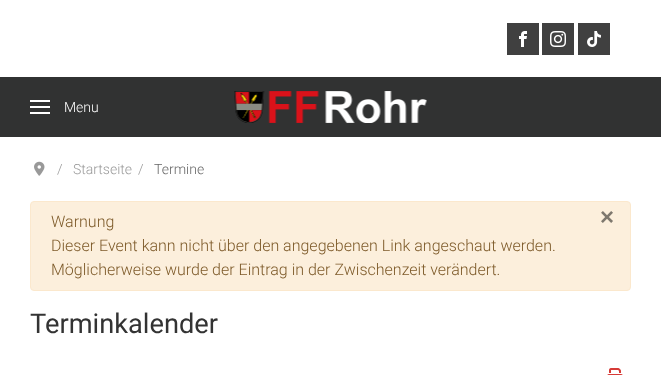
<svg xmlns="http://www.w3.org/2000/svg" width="661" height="375">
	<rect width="100%" height="100%" fill="#FFFFFF" />
	<rect x="507" y="23" width="32" height="32" fill="#404040" />
	<image x="519" y="31" width="8" height="16" href="assets/img1.png" />
	<rect x="542" y="23" width="32" height="32" fill="#404040" />
	<image x="550" y="31" width="16" height="16" href="assets/img2.png" />
	<rect x="578" y="23" width="32" height="32" fill="#404040" />
	<image x="587" y="31" width="14" height="16" href="assets/img3.png" />
	<rect x="0" y="77" width="661" height="60" fill="#313232" />
	<rect x="30" y="100" width="20" height="2" fill="#FFFFFF" />
	<rect x="30" y="106" width="20" height="2" fill="#FFFFFF" />
	<rect x="30" y="112" width="20" height="2" fill="#FFFFFF" />
	<text x="64" y="112" font-family="Roboto" font-size="14" font-weight="300" fill="#FFFFFF">Menu</text>
	<image x="234" y="91" width="193" height="32" href="assets/img4.png" />
	<image x="34" y="161" width="11" height="15" href="assets/img5.png" />
	<g font-family="Roboto" font-size="14" font-weight="300" fill="#999999">
		<text x="57" y="174">/</text>
		<text x="73" y="174">Startseite</text>
		<text x="138" y="174">/</text>
	</g>
	<text x="154" y="174" font-family="Roboto" font-size="14" font-weight="300" fill="#666666">Termine</text>
	<rect x="30.5" y="201.5" width="600" height="89" rx="3.5" fill="#FCEFDC" stroke="#FBE8CD" />
	<text x="51" y="227" font-family="Roboto" font-size="16" font-weight="300" fill="#7D5A29">Warnung</text>
	<text x="600" y="225" font-family="Liberation Sans" font-size="24" font-weight="700" fill="#7E786E">×</text>
	<g font-family="Roboto" font-size="16" font-weight="300" fill="#7D5A29">
		<text x="51" y="251">Dieser Event kann nicht über den angegebenen Link angeschaut werden.</text>
		<text x="51" y="275">Möglicherweise wurde der Eintrag in der Zwischenzeit verändert.</text>
	</g>
	<text x="30" y="333" font-family="Roboto" font-size="27.25" fill="#333333">Terminkalender</text>
	<image x="607" y="368" width="16" height="7" href="assets/img6.png" />
</svg>
